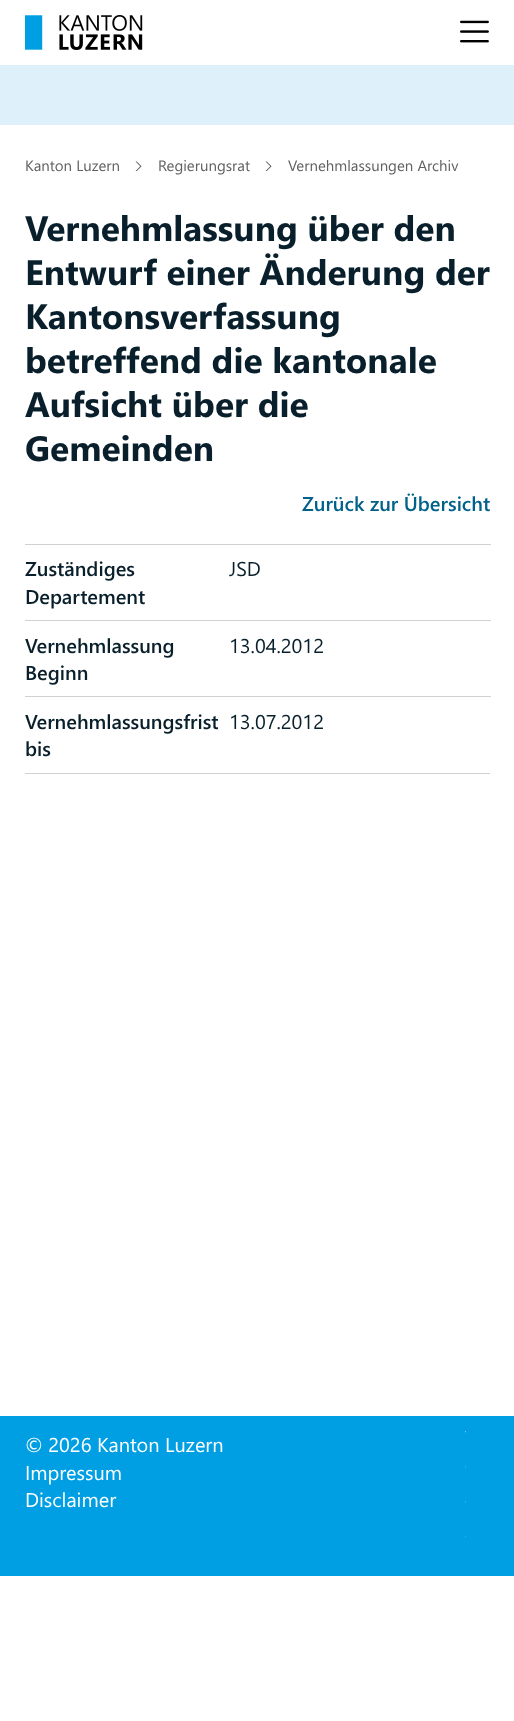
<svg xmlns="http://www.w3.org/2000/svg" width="514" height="1721">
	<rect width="100%" height="100%" fill="#FFFFFF" />
	<image x="25" y="15" width="118" height="35" href="assets/img1.png" />
	<image x="460" y="20" width="29" height="23" href="assets/img2.png" />
	<rect x="0" y="65" width="514" height="60" fill="#DEF0FA" />
	<text x="25" y="171" font-family="Segoe UI" font-size="15" fill="#616161">Kanton Luzern</text>
	<image x="135" y="161" width="7" height="10" href="assets/img3.png" />
	<text x="158" y="171" font-family="Segoe UI" font-size="15" fill="#616161">Regierungsrat</text>
	<image x="265" y="161" width="7" height="10" href="assets/img3.png" />
	<text x="288" y="171" font-family="Segoe UI" font-size="15" fill="#616161">Vernehmlassungen Archiv</text>
	<g font-family="Segoe UI" font-size="35.25" font-weight="700" fill="#09202C">
		<text x="25" y="241">Vernehmlassung über den</text>
		<text x="25" y="285">Entwurf einer Änderung der</text>
		<text x="25" y="329">Kantonsverfassung</text>
		<text x="25" y="373">betreffend die kantonale</text>
		<text x="25" y="417">Aufsicht über die</text>
		<text x="25" y="461">Gemeinden</text>
	</g>
	<text x="302" y="511" font-family="Segoe UI" font-size="20" font-weight="600" fill="#00618A">Zurück zur Übersicht</text>
	<rect x="25" y="773" width="465" height="1" fill="#D1D1D1" />
	<g font-family="Segoe UI" font-size="20" font-weight="600" fill="#09202C">
		<text x="25" y="576">Zuständiges</text>
		<text x="25" y="604">Departement</text>
	</g>
	<rect x="25" y="544" width="466" height="1" fill="#D1D1D1" />
	<text x="229" y="576" font-family="Segoe UI" font-size="20" fill="#09202C">JSD</text>
	<g font-family="Segoe UI" font-size="20" font-weight="600" fill="#09202C">
		<text x="25" y="653">Vernehmlassung</text>
		<text x="25" y="680">Beginn</text>
	</g>
	<rect x="25" y="620" width="466" height="1" fill="#D1D1D1" />
	<text x="229" y="653" font-family="Segoe UI" font-size="20" fill="#09202C">13.04.2012</text>
	<g font-family="Segoe UI" font-size="20" font-weight="600" fill="#09202C">
		<text x="25" y="729">Vernehmlassungsfrist</text>
		<text x="25" y="756">bis</text>
	</g>
	<rect x="25" y="696" width="466" height="1" fill="#D1D1D1" />
	<text x="229" y="729" font-family="Segoe UI" font-size="20" fill="#09202C">13.07.2012</text>
	<rect x="0" y="1416" width="514" height="160" fill="#009FE3" />
	<g font-family="Segoe UI" font-size="20" fill="#FFFFFF">
		<text x="25" y="1452">© 2026 Kanton Luzern</text>
		<text x="25" y="1480">Impressum</text>
		<text x="25" y="1507">Disclaimer</text>
	</g>
	<image x="465" y="1431" width="1" height="2" href="assets/img4.png" />
	<image x="465" y="1466" width="1" height="2" href="assets/img5.png" />
	<image x="465" y="1501" width="1" height="2" href="assets/img6.png" />
	<image x="465" y="1536" width="1" height="2" href="assets/img7.png" />
</svg>
